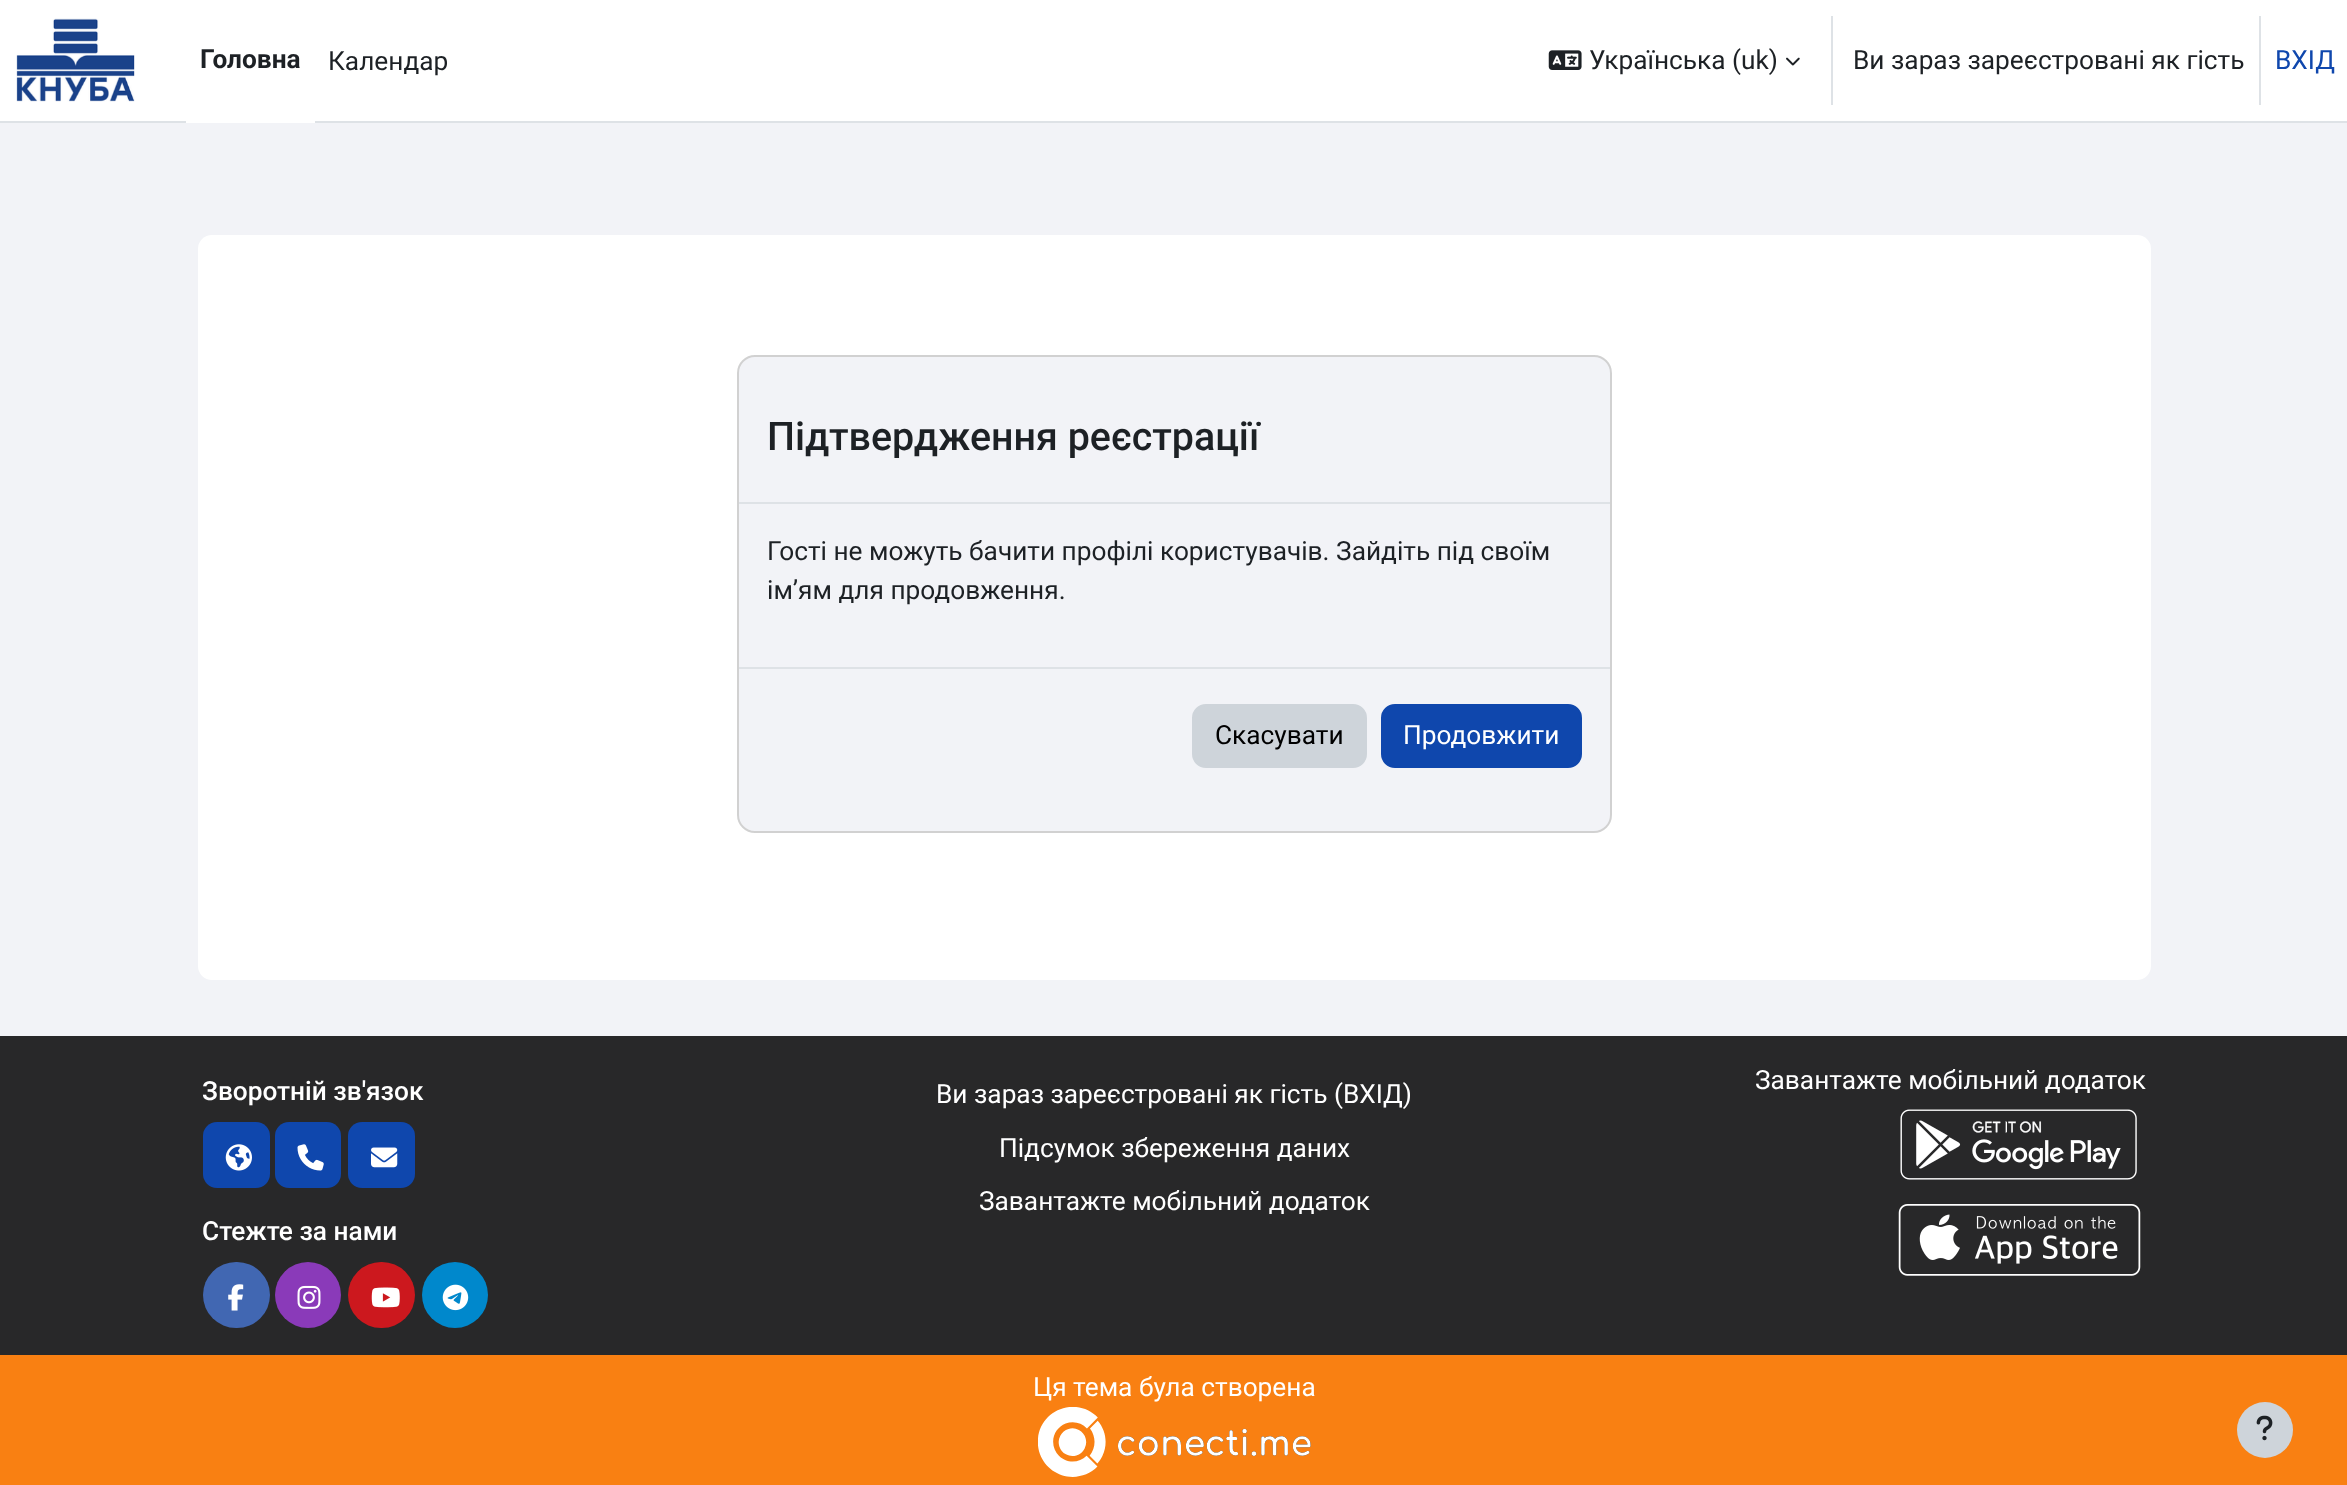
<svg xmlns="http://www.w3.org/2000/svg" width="2347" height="1485">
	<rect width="100%" height="100%" fill="#F2F3F7" />
	<rect x="0" y="0" width="2347" height="121" fill="#FFFFFF" />
	<rect x="0" y="121" width="2347" height="2" fill="#DEE2E6" />
	<image x="16" y="18" width="119" height="84" href="assets/img1.png" />
	<rect x="186" y="121" width="129" height="2" fill="#FFFFFF" />
	<text x="200" y="68" font-family="Roboto" font-size="26.25" font-weight="700" fill="#1D2125">Головна</text>
	<text x="328" y="70" font-family="Roboto" font-size="26.25" fill="#1D2125">Календар</text>
	<image x="1548" y="50" width="34" height="20" href="assets/img2.png" />
	<text x="1589" y="69" font-family="Roboto" font-size="26.25" fill="#1D2125">Українська (uk)</text>
	<image x="1786" y="57" width="14" height="9" href="assets/img3.png" />
	<rect x="1831" y="16" width="2" height="89" fill="#DEE2E6" />
	<text x="1853" y="69" font-family="Roboto" font-size="26.25" fill="#1D2125">Ви зараз зареєстровані як гість</text>
	<rect x="2259" y="16" width="2" height="89" fill="#DEE2E6" />
	<text x="2275" y="69" font-family="Roboto" font-size="26.25" fill="#0F47AD">ВХІД</text>
	<rect x="198" y="235" width="1953" height="745" rx="14" fill="#FFFFFF" />
	<rect x="739" y="357" width="871" height="474" rx="16" fill="#F2F3F7" />
	<rect x="738" y="356" width="873" height="476" rx="17" fill="none" stroke="#000000" stroke-opacity="0.18" stroke-width="2" />
	<rect x="739" y="502" width="871" height="2" fill="#DEE2E6" />
	<text x="767" y="450" font-family="Roboto" font-size="39.4" font-weight="500" fill="#1D2125">Підтвердження реєстрації</text>
	<g font-family="Roboto" font-size="26.25" fill="#1D2125">
		<text x="767" y="560">Гості не можуть бачити профілі користувачів. Зайдіть під своїм</text>
		<text x="767" y="599">ім’ям для продовження.</text>
	</g>
	<rect x="739" y="667" width="871" height="2" fill="#DEE2E6" />
	<rect x="1193" y="705" width="173" height="62" rx="13" fill="#CED4DA" stroke="#CED4DA" stroke-width="2" />
	<text x="1215" y="744" font-family="Roboto" font-size="26.25" fill="#000000">Скасувати</text>
	<rect x="1382" y="705" width="199" height="62" rx="13" fill="#0F47AD" stroke="#0F47AD" stroke-width="2" />
	<text x="1403" y="744" font-family="Roboto" font-size="26.25" fill="#FFFFFF">Продовжити</text>
	<rect x="0" y="1036" width="2347" height="319" fill="#282829" />
	<text x="202" y="1100" font-family="Roboto" font-size="26.25" font-weight="500" fill="#FFFFFF">Зворотній зв'язок</text>
	<rect x="203" y="1122" width="67" height="66" rx="14" fill="#0F47AD" />
	<image x="225" y="1144" width="27" height="27" href="assets/img4.png" />
	<rect x="275" y="1122" width="66" height="66" rx="14" fill="#0F47AD" />
	<image x="297" y="1144" width="27" height="27" href="assets/img5.png" />
	<rect x="348" y="1122" width="67" height="66" rx="14" fill="#0F47AD" />
	<image x="371" y="1147" width="27" height="21" href="assets/img6.png" />
	<text x="202" y="1240" font-family="Roboto" font-size="26.25" font-weight="500" fill="#FFFFFF">Стежте за нами</text>
	<rect x="203" y="1262" width="67" height="66" rx="33" fill="#4167B2" />
	<image x="228" y="1284" width="16" height="27" href="assets/img7.png" />
	<circle cx="308" cy="1295" r="33" fill="#8A3AB9" />
	<image x="297" y="1285" width="24" height="24" href="assets/img8.png" />
	<rect x="348" y="1262" width="67" height="66" rx="33" fill="#CC181E" />
	<image x="371" y="1287" width="29" height="21" href="assets/img9.png" />
	<circle cx="455" cy="1295" r="33" fill="#0088CC" />
	<image x="442" y="1284" width="27" height="27" href="assets/img10.png" />
	<g font-family="Roboto" font-size="26.25" fill="#FFFFFF">
		<text x="936" y="1103">Ви зараз зареєстровані як гість (ВХІД)</text>
		<text x="999" y="1157">Підсумок збереження даних</text>
		<text x="979" y="1210">Завантажте мобільний додаток</text>
		<text x="1755" y="1089">Завантажте мобільний додаток</text>
	</g>
	<image x="1900" y="1109" width="237" height="71" href="assets/img11.png" />
	<image x="1898" y="1204" width="243" height="72" href="assets/img12.png" />
	<rect x="0" y="1355" width="2347" height="130" fill="#F98012" />
	<text x="1033" y="1396" font-family="Roboto" font-size="26.25" fill="#FFFFFF">Ця тема була створена</text>
	<image x="1038" y="1407" width="273" height="70" href="assets/img13.png" />
	<circle cx="2265" cy="1430" r="28" fill="#CED4DA" />
	<image x="2256" y="1415" width="17" height="26" href="assets/img14.png" />
</svg>
